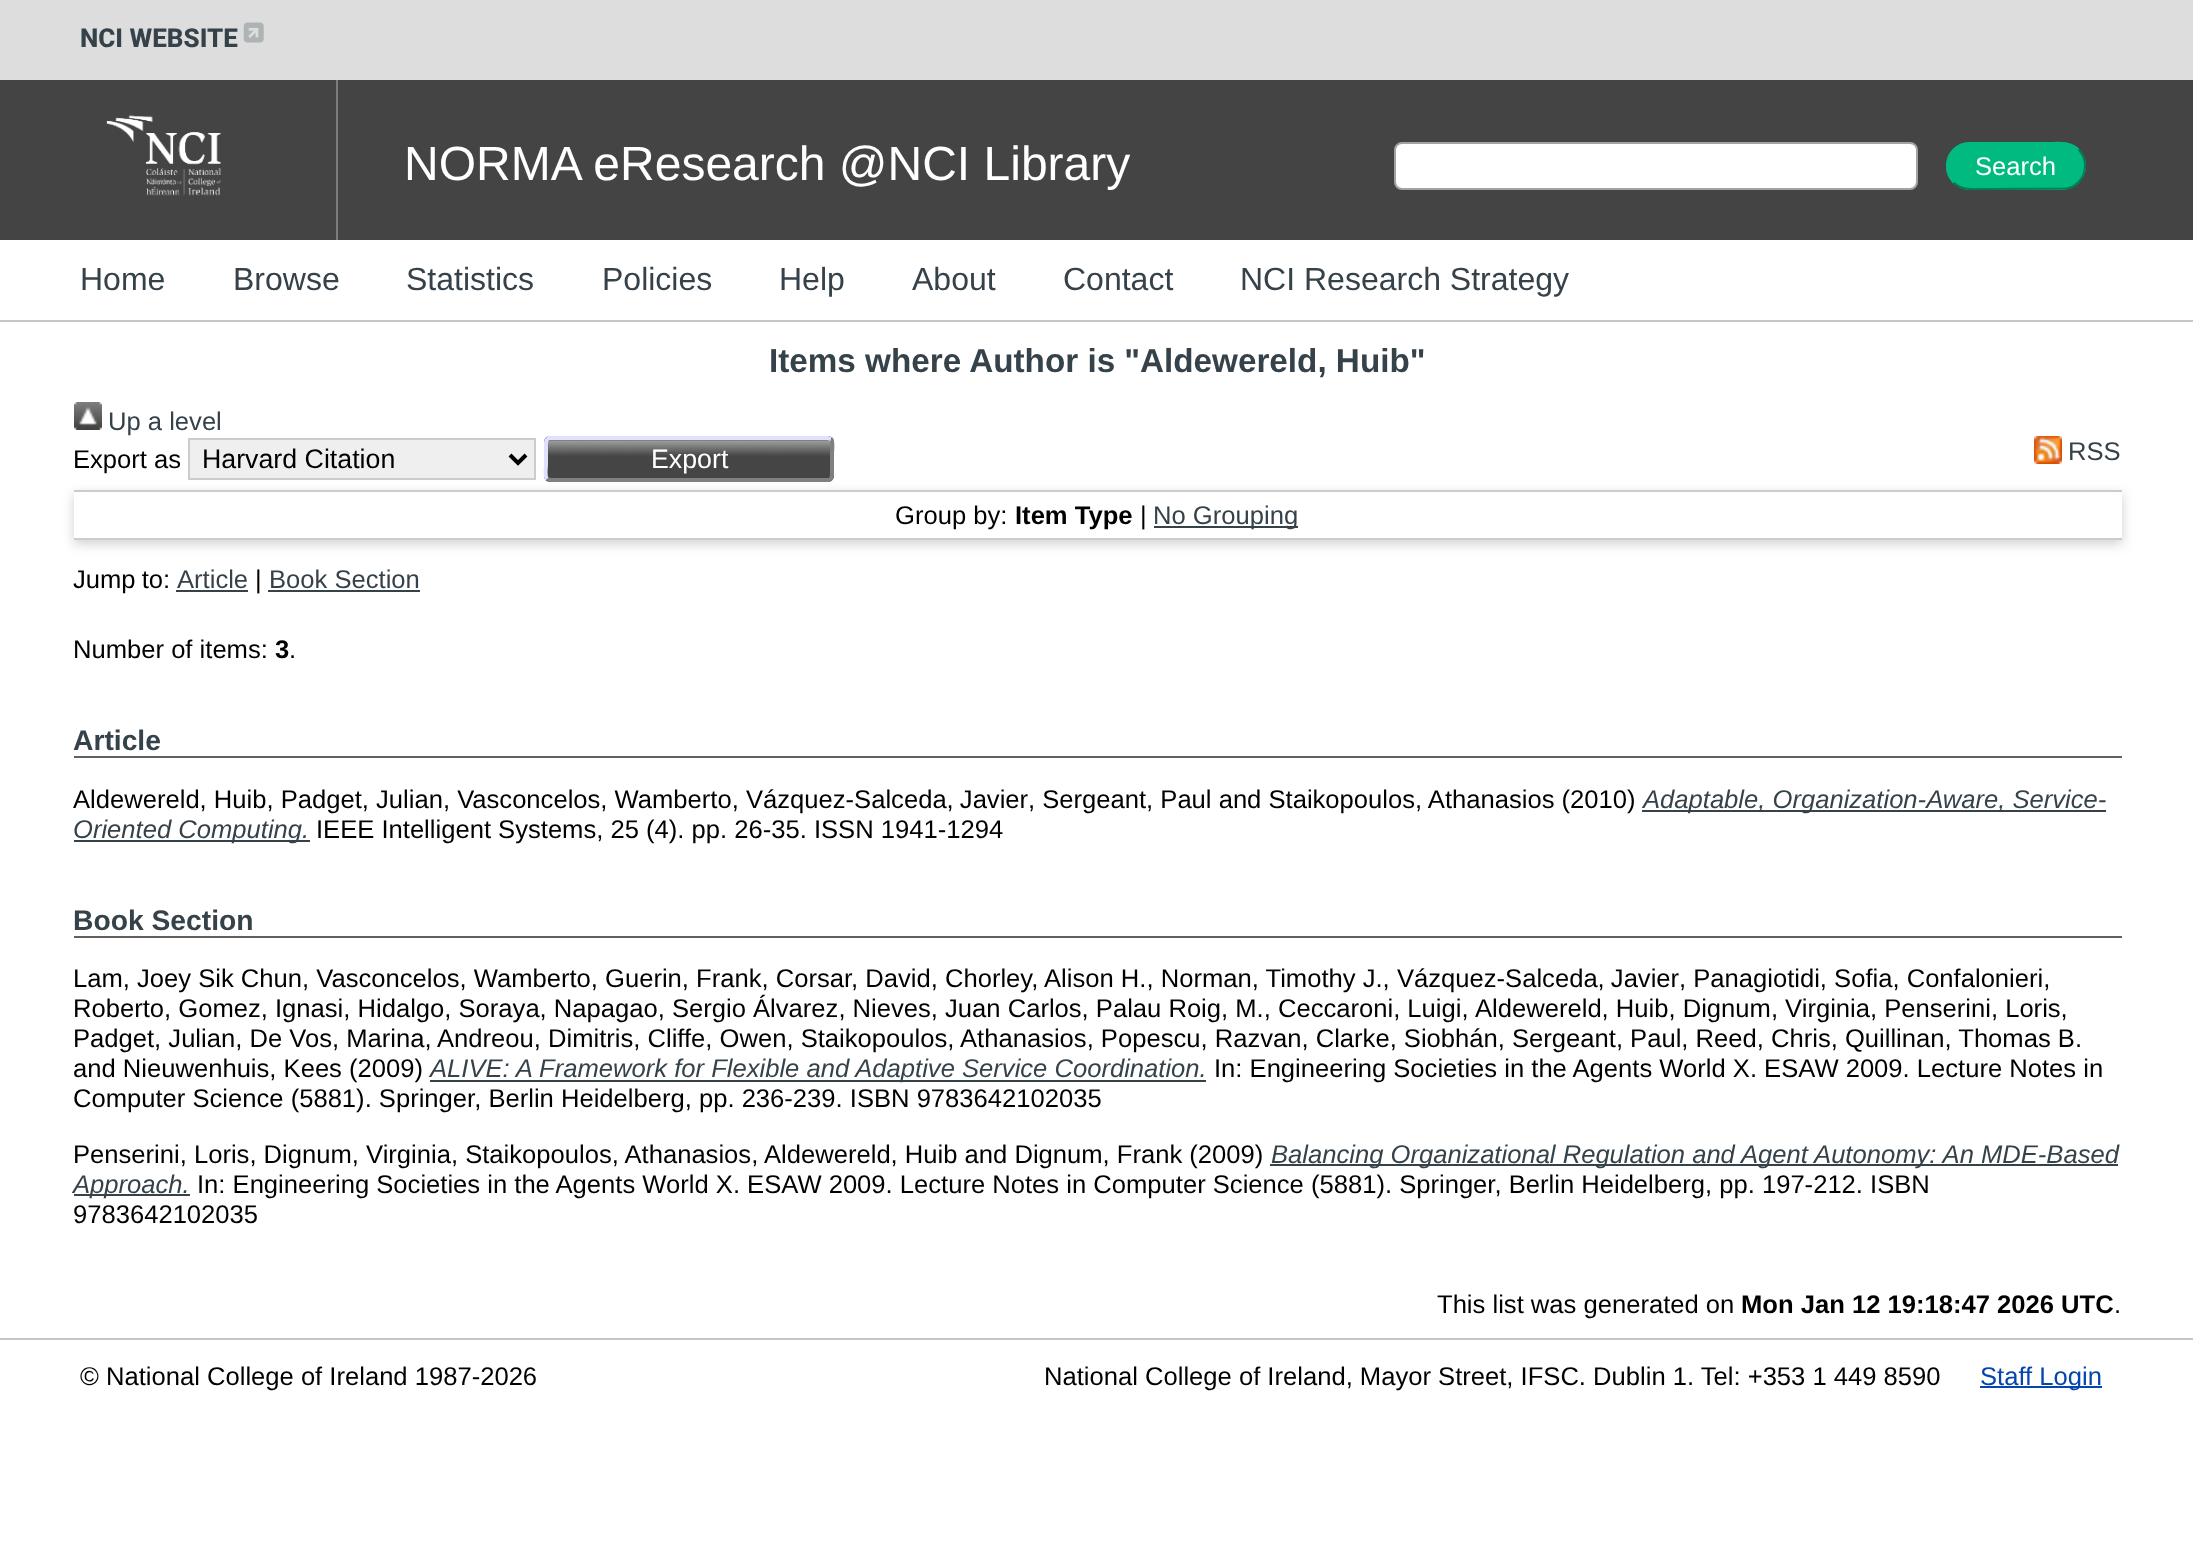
<svg xmlns="http://www.w3.org/2000/svg" width="2193" height="1557">
	<defs>
		<clipPath id="clip1"><path d="M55 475H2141V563H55ZM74 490H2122V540H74Z" clip-rule="evenodd" /></clipPath>
	</defs>
	<rect width="100%" height="100%" fill="#FFFFFF" />
	<rect x="0" y="0" width="2193" height="80" fill="#DDDDDD" />
	<text x="80" y="47" font-family="Roboto" font-size="26" font-weight="800" fill="#36424A">NCI WEBSITE</text>
	<image x="243" y="22" width="21" height="21" href="assets/img1.png" />
	<rect x="0" y="80" width="2193" height="160" fill="#444444" />
	<image x="106" y="115" width="115" height="81" href="assets/img2.png" />
	<rect x="336" y="80" width="2" height="160" fill="#7C7C7C" />
	<text x="404" y="180" font-family="Liberation Sans" font-size="48" fill="#FFFFFF">NORMA eResearch @NCI Library</text>
	<rect x="1395" y="143" width="522" height="46" rx="7" fill="#FFFFFF" stroke="#A3A3A3" stroke-width="2" />
	<rect x="1946" y="142" width="140" height="48" rx="24" fill="#01BA7F" />
	<path d="M2078.5 149.5C2083.5 155 2086 163 2084.5 170.5C2083 179.5 2075.5 187 2066.5 188.5L1985.5 189C1974 189 1962.5 191 1953.5 182.5" fill="none" stroke="#017C55" stroke-width="2" />
	<path d="M1953.5 182.5C1948.5 177 1946 169 1947.5 161.5C1949 152.5 1956.5 145 1965.5 143.5L2046.5 143C2058 143 2069.5 141 2078.5 149.5" fill="none" stroke="#01BA7F" stroke-width="2" />
	<text x="1975" y="175" font-family="Liberation Sans" font-size="25.6" fill="#FFFFFF">Search</text>
	<rect x="0" y="320" width="2193" height="2" fill="#C3C6C9" />
	<g font-family="Liberation Sans" font-size="32" fill="#36424A">
		<text x="80" y="290">Home</text>
		<text x="233" y="290">Browse</text>
		<text x="406" y="290">Statistics</text>
		<text x="602" y="290">Policies</text>
		<text x="779" y="290">Help</text>
		<text x="912" y="290">About</text>
		<text x="1063" y="290">Contact</text>
		<text x="1240" y="290">NCI Research Strategy</text>
	</g>
	<g font-family="Liberation Sans" font-size="33.25" font-weight="700" fill="#36424A">
		<text x="769" y="372">Items where Author is "</text>
		<text x="1140" y="372">Aldewereld, Huib"</text>
	</g>
	<image x="74" y="402" width="28" height="28" href="assets/img3.png" />
	<text x="108" y="430" font-family="Liberation Sans" font-size="25.6" fill="#36424A">Up a level</text>
	<text x="73" y="468" font-family="Liberation Sans" font-size="25.6" fill="#000000">Export as</text>
	<g clip-path="url(#clip1)">
		<rect x="74" y="494" width="2048" height="50" fill="#646464" fill-opacity="0.3" filter="blur(6px)" />
	</g>
	<rect x="189" y="439" width="346" height="40" fill="#EFEFEF" stroke="#CCCCCC" stroke-width="2" />
	<path d="M510 455L518 463L526 455" fill="none" stroke="#000000" stroke-width="4" />
	<text x="202" y="468" font-family="Liberation Sans" font-size="26.75" fill="#000000">Harvard Citation</text>
	<image x="544" y="436" width="290" height="46" href="assets/img4.png" />
	<path d="M831 439C833.5 441.5 832 450.5 832 453.5V470.5C832 473 833 478.5 829 480H550L547 479" fill="none" stroke="#808080" stroke-width="4" />
	<path d="M547 479C544.5 476.5 546 467.5 546 464.5V447.5C546 445 545 439.5 549 438H828L831 439" fill="none" stroke="#E0E0FF" stroke-width="4" />
	<text x="651" y="468" font-family="Liberation Sans" font-size="26.75" fill="#FFFFFF">Export</text>
	<image x="2034" y="436" width="28" height="28" href="assets/img5.png" />
	<text x="2068" y="460" font-family="Liberation Sans" font-size="25.6" fill="#36424A">RSS</text>
	<rect x="74" y="490" width="2048" height="2" fill="#CCCCCC" />
	<rect x="74" y="538" width="2048" height="2" fill="#CCCCCC" />
	<text x="895" y="524" font-family="Liberation Sans" font-size="25.6" fill="#000000">Group by:</text>
	<text x="1015" y="524" font-family="Liberation Sans" font-size="25.6" font-weight="700" fill="#000000">Item Type</text>
	<text x="1140" y="524" font-family="Liberation Sans" font-size="25.6" fill="#000000">|</text>
	<rect x="1154" y="526" width="144" height="2" fill="#36424A" />
	<text x="1153" y="524" font-family="Liberation Sans" font-size="25.6" fill="#36424A">No Grouping</text>
	<text x="73" y="588" word-spacing="-1" font-family="Liberation Sans" font-size="25.6" fill="#000000">Jump to:</text>
	<text x="177" y="588" font-family="Liberation Sans" font-size="25.6" fill="#36424A">Article</text>
	<rect x="176" y="590" width="72" height="2" fill="#36424A" />
	<text x="255" y="588" font-family="Liberation Sans" font-size="25.6" fill="#000000">|</text>
	<text x="269" y="588" font-family="Liberation Sans" font-size="25.6" fill="#36424A">Book Section</text>
	<rect x="268" y="590" width="152" height="2" fill="#36424A" />
	<text x="73" y="658" font-family="Liberation Sans" font-size="25.6" fill="#000000">Number of items:</text>
	<text x="275" y="658" font-family="Liberation Sans" font-size="25.6" font-weight="700" fill="#000000">3</text>
	<text x="289" y="658" font-family="Liberation Sans" font-size="25.6" fill="#000000">.</text>
	<rect x="74" y="756" width="2048" height="2" fill="#606060" />
	<text x="73" y="750" font-family="Liberation Sans" font-size="28.25" font-weight="700" fill="#36424A">Article</text>
	<g font-family="Liberation Sans" font-size="25.6" fill="#000000">
		<text x="73" y="808">Aldewereld, Huib, Padget, Julian, Vasconcelos, Wamberto,</text>
		<text x="746" y="808" word-spacing="-1">Vázquez-Salceda, Javier</text>
		<text x="1028" y="808">, Sergeant, Paul and Staikopoulos, Athanasios (2010)</text>
	</g>
	<rect x="1642" y="810" width="464" height="2" fill="#36424A" />
	<text x="1643" y="808" font-family="Liberation Sans" font-size="25.6" font-style="italic" fill="#36424A">Adaptable, Organization-Aware, Service-</text>
	<rect x="74" y="840" width="236" height="2" fill="#36424A" />
	<text x="73" y="838" font-family="Liberation Sans" font-size="25.6" font-style="italic" fill="#36424A">Oriented Computing.</text>
	<text x="316" y="838" font-family="Liberation Sans" font-size="25.6" fill="#000000">IEEE Intelligent Systems, 25 (4). pp. 26-35. ISSN 1941-1294</text>
	<rect x="74" y="936" width="2048" height="2" fill="#606060" />
	<text x="73" y="930" font-family="Liberation Sans" font-size="28.25" font-weight="700" fill="#36424A">Book Section</text>
	<g font-family="Liberation Sans" font-size="25.6" fill="#000000">
		<text x="73" y="987">Lam, Joey Sik Chun, Vasconcelos, Wamberto, Guerin, Frank, Corsar, David, Chorley, Alison H., Norman, Timothy J.,</text>
		<text x="1397" y="987" word-spacing="-1">Vázquez-Salceda, Javier</text>
		<text x="1679" y="987">, Panagiotidi, Sofia, Confalonieri,</text>
		<text x="73" y="1017">Roberto, Gomez, Ignasi, Hidalgo, Soraya, Napagao, Sergio Álvarez, Nieves, Juan Carlos, Palau Roig, M., Ceccaroni, Luigi,</text>
		<text x="1475" y="1017">Aldewereld, Huib, Dignum, Virginia, Penserini, Loris,</text>
		<text x="73" y="1047">Padget, Julian, De Vos, Marina,</text>
		<text x="437" y="1047">Andreou, Dimitris, Cliffe, Owen, Staikopoulos, Athanasios, Popescu, Razvan, Clarke, Siobhán, Sergeant, Paul, Reed, Chris, Quillinan, Thomas B.</text>
		<text x="73" y="1077">and Nieuwenhuis, Kees (2009)</text>
	</g>
	<rect x="430" y="1080" width="776" height="2" fill="#36424A" />
	<text x="430" y="1077" font-family="Liberation Sans" font-size="25.6" font-style="italic" fill="#36424A">ALIVE: A Framework for Flexible and Adaptive Service Coordination.</text>
	<g font-family="Liberation Sans" font-size="25.6" fill="#000000">
		<text x="1214" y="1077">In: Engineering Societies in the Agents World X. ESAW 2009. Lecture Notes in</text>
		<text x="73" y="1107">Computer Science (5881). Springer, Berlin Heidelberg, pp. 236-239. ISBN 9783642102035</text>
		<text x="73" y="1163">Penserini, Loris, Dignum, Virginia, Staikopoulos, Athanasios,</text>
		<text x="764" y="1163">Aldewereld, Huib and Dignum, Frank (2009)</text>
	</g>
	<rect x="1270" y="1164" width="848" height="2" fill="#36424A" />
	<text x="1271" y="1163" font-family="Liberation Sans" font-size="25.6" font-style="italic" fill="#36424A">Balancing Organizational Regulation and Agent Autonomy: An MDE-Based</text>
	<rect x="74" y="1194" width="116" height="2" fill="#36424A" />
	<text x="73" y="1193" font-family="Liberation Sans" font-size="25.6" font-style="italic" fill="#36424A">Approach.</text>
	<g font-family="Liberation Sans" font-size="25.6" fill="#000000">
		<text x="197" y="1193">In: Engineering Societies in the Agents World X. ESAW 2009. Lecture Notes in Computer Science (5881). Springer, Berlin Heidelberg, pp. 197-212. ISBN</text>
		<text x="73" y="1223">9783642102035</text>
		<text x="1437" y="1313">This list was generated on</text>
	</g>
	<text x="1741" y="1313" font-family="Liberation Sans" font-size="25.6" font-weight="700" fill="#000000">Mon Jan 12 19:18:47 2026 UTC</text>
	<text x="2114" y="1313" font-family="Liberation Sans" font-size="25.6" fill="#000000">.</text>
	<rect x="0" y="1338" width="2193" height="2" fill="#C3C6C9" />
	<g font-family="Liberation Sans" font-size="25.6" fill="#000000">
		<text x="80" y="1385">© National College of Ireland 1987-2026</text>
		<text x="1044" y="1385">National College of Ireland, Mayor Street, IFSC. Dublin 1. Tel: +353 1 449 8590</text>
	</g>
	<rect x="1980" y="1386" width="122" height="2" fill="#0645AD" />
	<text x="1980" y="1385" font-family="Liberation Sans" font-size="25.6" fill="#0645AD">Staff Login</text>
</svg>
